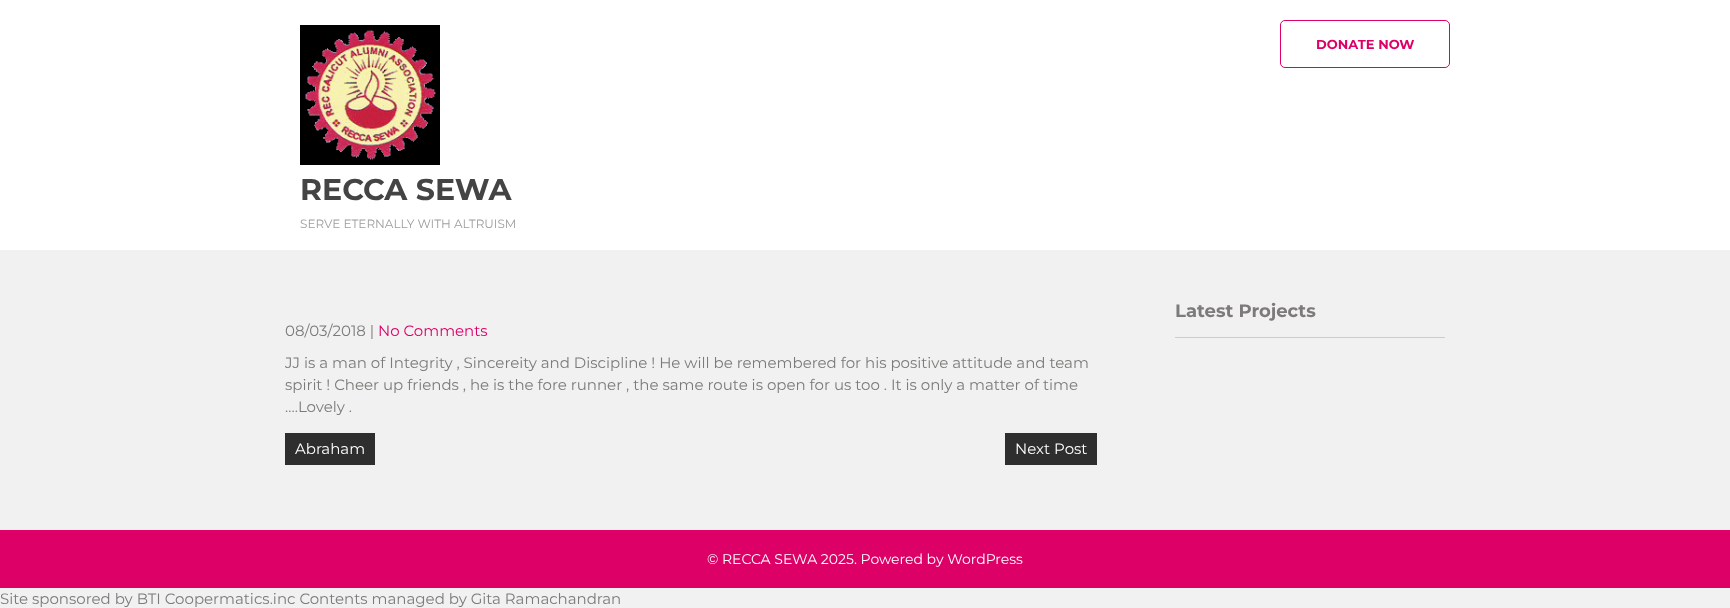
<svg xmlns="http://www.w3.org/2000/svg" width="1730" height="608">
	<rect width="100%" height="100%" fill="#F1F1F1" />
	<rect x="0" y="0" width="1730" height="250" fill="#FFFFFF" />
	<rect x="1280.5" y="20.5" width="169" height="47" rx="4.5" fill="none" stroke="#DC0067" />
	<text x="1316" y="49" font-family="Montserrat" font-size="13" font-weight="700" fill="#DC0067">DONATE NOW</text>
	<image x="300" y="25" width="140" height="140" href="assets/img1.png" />
	<text x="300" y="200" font-family="Montserrat" font-size="30" font-weight="700" fill="#444444">RECCA SEWA</text>
	<text x="300" y="228" font-family="Montserrat" font-size="12" fill="#9D9D9D">SERVE ETERNALLY WITH ALTRUISM</text>
	<rect x="1175" y="337" width="270" height="1" fill="#CCCCCC" />
	<text x="1175" y="317" font-family="Montserrat" font-size="18" font-weight="700" fill="#7C7B79">Latest Projects</text>
	<text x="285" y="336" font-family="Montserrat" font-size="15" fill="#7C7B79">08/03/2018 |</text>
	<text x="378" y="336" font-family="Montserrat" font-size="15" fill="#DC0067">No Comments</text>
	<g font-family="Montserrat" font-size="15" fill="#7C7B79">
		<text x="285" y="368">JJ is a man of Integrity , Sincereity and Discipline ! He will be remembered for his positive attitude and team</text>
		<text x="285" y="390">spirit ! Cheer up friends , he is the fore runner , the same route is open for us too . It is only a matter of time</text>
		<text x="285" y="412">….Lovely .</text>
	</g>
	<rect x="285" y="433" width="90" height="32" fill="#2E2E2E" />
	<text x="295" y="454" font-family="Montserrat" font-size="15" fill="#FFFFFF">Abraham</text>
	<rect x="1005" y="433" width="92" height="32" fill="#2E2E2E" />
	<text x="1015" y="454" font-family="Montserrat" font-size="15" fill="#FFFFFF">Next Post</text>
	<rect x="0" y="530" width="1730" height="58" fill="#DC0067" />
	<text x="707" y="564" font-family="Montserrat" font-size="14" fill="#FFFFFF">© RECCA SEWA 2025. Powered by WordPress</text>
	<text x="0" y="604" font-family="Montserrat" font-size="15" fill="#7C7B79">Site sponsored by BTI Coopermatics.inc Contents managed by Gita Ramachandran</text>
</svg>
